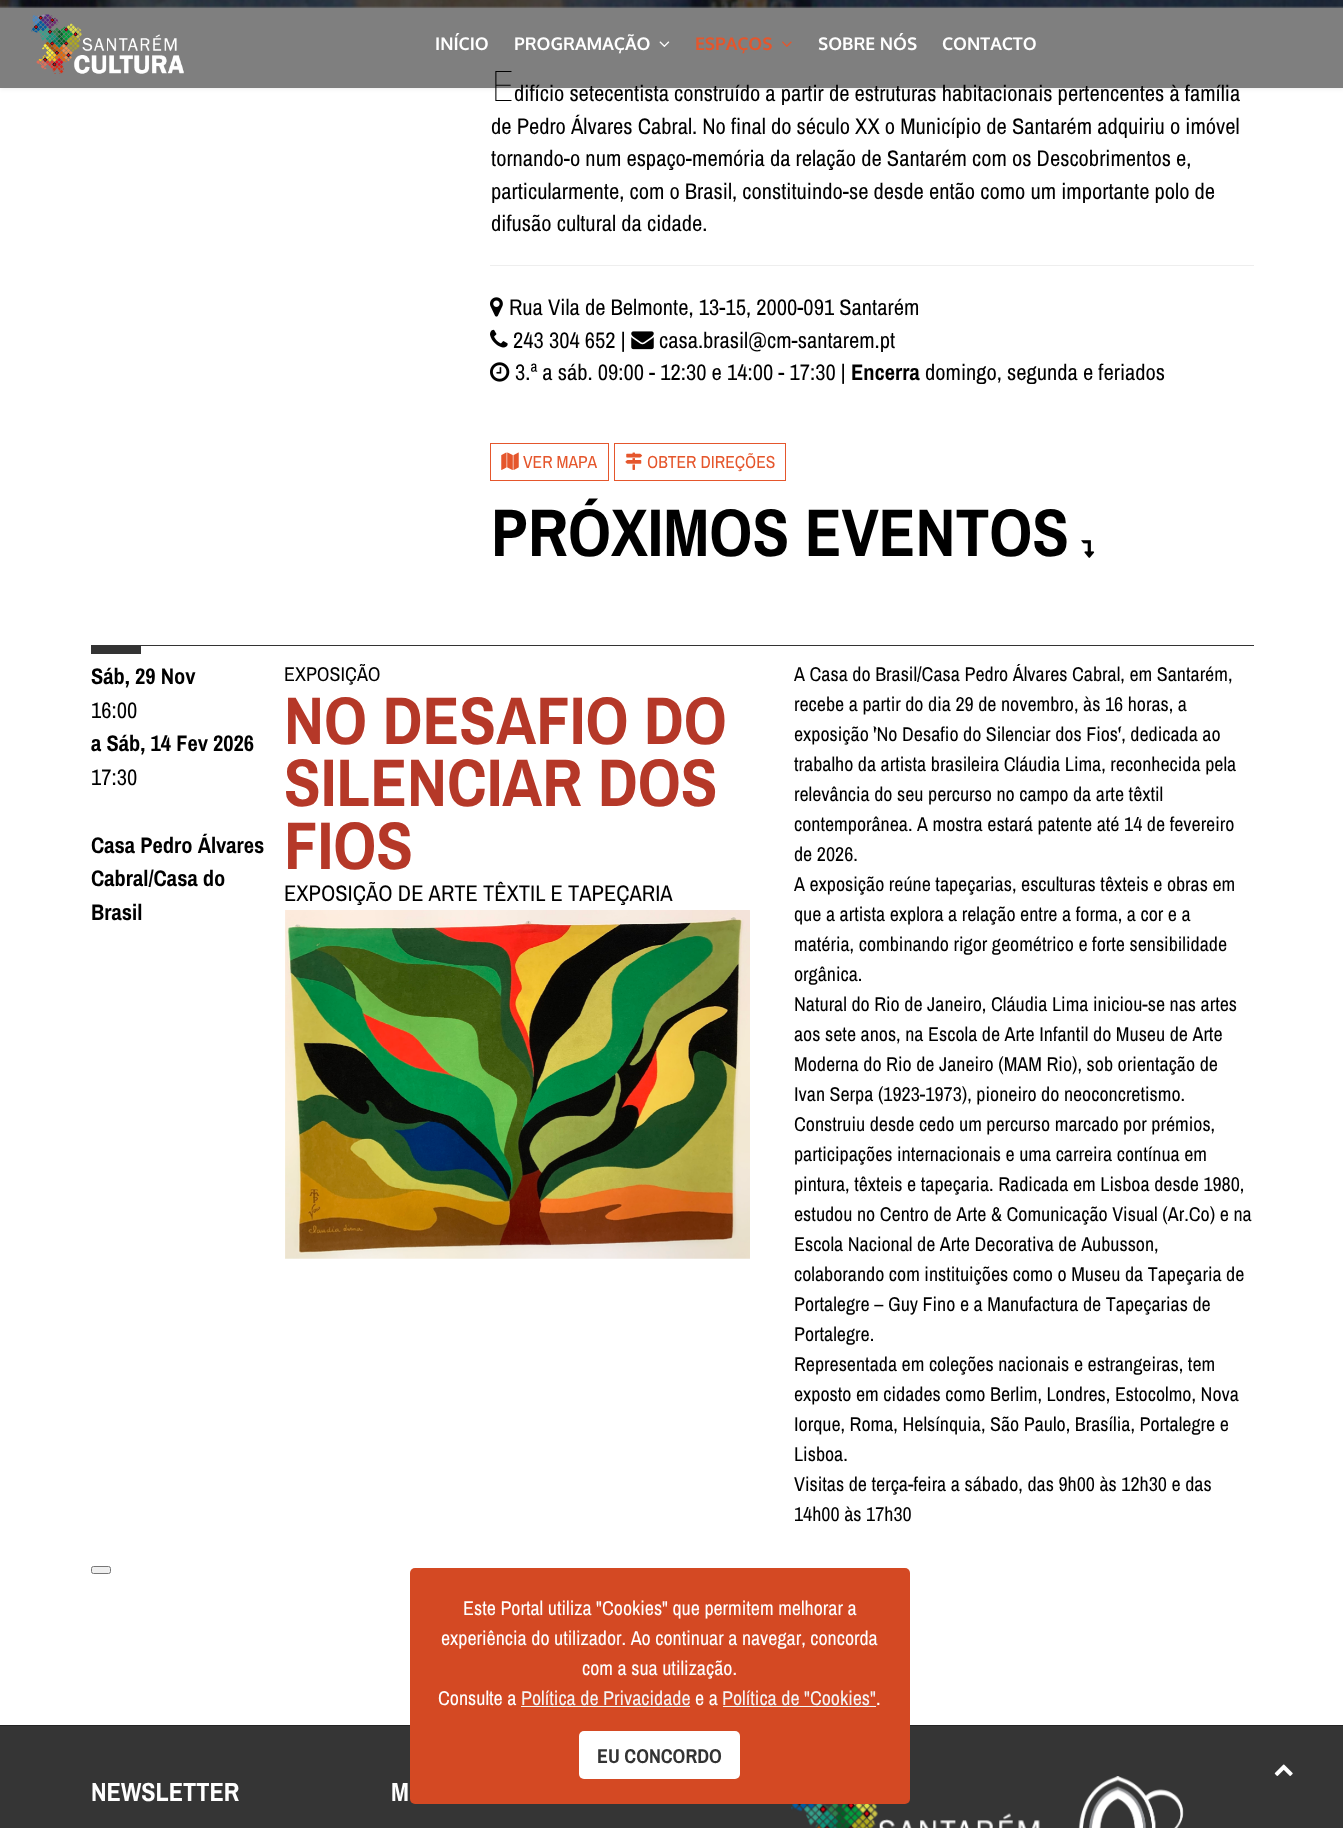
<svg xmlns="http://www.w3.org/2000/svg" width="1343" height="1828">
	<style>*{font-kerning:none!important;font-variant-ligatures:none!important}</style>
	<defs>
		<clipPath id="clip1"><path d="M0 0H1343V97H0ZM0 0H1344V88H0Z" clip-rule="evenodd" /></clipPath>
	</defs>
	<rect width="100%" height="100%" fill="#FFFFFF" />
	<image x="0" y="0" width="1343" height="8" href="assets/img1.png" />
	<g clip-path="url(#clip1)">
		<rect x="0" y="0" width="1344" height="88" fill="#000000" fill-opacity="0.1" filter="blur(2.5px)" />
	</g>
	<text x="491" y="101" font-family="Noto Sans" font-size="42" font-weight="100" fill="#000000">E</text>
	<text x="514" y="101" font-family="Archivo Narrow" font-size="22.5" fill="#000000">difício setecentista construído a partir de estruturas habitacionais pertencentes à família</text>
	<rect x="0" y="0" width="1343" height="88" fill="#000000" fill-opacity="0.5" />
	<image x="31" y="14" width="153" height="60" href="assets/img2.png" />
	<g font-family="Oxygen" font-size="17.5" font-weight="700" fill="#FFFFFF">
		<text x="435" y="50">INÍCIO</text>
		<text x="514" y="50">PROGRAMAÇÃO</text>
	</g>
	<image x="659" y="41" width="11" height="6" href="assets/img3.png" />
	<text x="695" y="50" font-family="Oxygen" font-size="17.5" font-weight="700" fill="#E5562C">ESPAÇOS</text>
	<image x="782" y="41" width="10" height="6" href="assets/img4.png" />
	<g font-family="Oxygen" font-size="17.5" font-weight="700" fill="#FFFFFF">
		<text x="818" y="50">SOBRE NÓS</text>
		<text x="942" y="50">CONTACTO</text>
	</g>
	<g font-family="Archivo Narrow" font-size="22.5" fill="#000000">
		<text x="491" y="134">de Pedro Álvares Cabral. No final do século XX o Município de Santarém adquiriu o imóvel</text>
		<text x="491" y="166">tornando-o num espaço-memória da relação de Santarém com os Descobrimentos e,</text>
		<text x="491" y="199">particularmente, com o Brasil, constituindo-se desde então como um importante polo de</text>
		<text x="491" y="231">difusão cultural da cidade.</text>
	</g>
	<rect x="490" y="265" width="764" height="1" fill="#EEEEEE" />
	<image x="490" y="297" width="13" height="20" href="assets/img5.png" />
	<text x="509" y="315" font-family="Archivo Narrow" font-size="22.5" fill="#000000">Rua Vila de Belmonte, 13-15, 2000-091 Santarém</text>
	<image x="490" y="329" width="18" height="19" href="assets/img6.png" />
	<text x="513" y="348" font-family="Archivo Narrow" font-size="22.5" fill="#000000">243 304 652 |</text>
	<image x="631" y="331" width="23" height="19" href="assets/img7.png" />
	<text x="659" y="348" font-family="Archivo Narrow" font-size="22.5" fill="#000000">casa.brasil@cm-santarem.pt</text>
	<image x="490" y="362" width="20" height="20" href="assets/img8.png" />
	<text x="515" y="380" font-family="Archivo Narrow" font-size="22.5" fill="#000000">3.ª a sáb. 09:00 - 12:30 e 14:00 - 17:30 |</text>
	<text x="851" y="380" font-family="Archivo Narrow" font-size="22.5" font-weight="700" fill="#000000">Encerra</text>
	<text x="925" y="380" font-family="Archivo Narrow" font-size="22.5" fill="#000000">domingo, segunda e feriados</text>
	<rect x="490.5" y="443.5" width="118" height="37" fill="none" stroke="#E5562C" />
	<image x="501" y="452" width="18" height="18" href="assets/img9.png" />
	<text x="523" y="468" font-family="Archivo Narrow" font-size="17.5" fill="#E5562C">VER MAPA</text>
	<rect x="614.5" y="443.5" width="171" height="37" fill="none" stroke="#E5562C" />
	<image x="625" y="452" width="18" height="18" href="assets/img10.png" />
	<text x="647" y="468" font-family="Archivo Narrow" font-size="17.5" fill="#E5562C">OBTER DIREÇÕES</text>
	<text x="491" y="556" font-family="Archivo Narrow" font-size="67.5" font-weight="700" fill="#000000">PRÓXIMOS EVENTOS</text>
	<image x="1081" y="540" width="14" height="18" href="assets/img11.png" />
	<rect x="91" y="645" width="1163" height="1" fill="#333333" />
	<rect x="91" y="646" width="50" height="8" fill="#333333" />
	<text x="91" y="684" font-family="Archivo Narrow" font-size="22.5" font-weight="700" fill="#000000">Sáb, 29 Nov</text>
	<text x="91" y="718" font-family="Archivo Narrow" font-size="22.5" fill="#000000">16:00</text>
	<text x="91" y="751" font-family="Archivo Narrow" font-size="22.5" font-weight="700" fill="#000000">a Sáb, 14 Fev 2026</text>
	<text x="91" y="785" font-family="Archivo Narrow" font-size="22.5" fill="#000000">17:30</text>
	<g font-family="Archivo Narrow" font-size="22.5" font-weight="700" fill="#000000">
		<text x="91" y="853">Casa Pedro Álvares</text>
		<text x="91" y="886">Cabral/Casa do</text>
		<text x="91" y="920">Brasil</text>
	</g>
	<text x="284" y="681" font-family="Archivo Narrow" font-size="20" fill="#000000">EXPOSIÇÃO</text>
	<g font-family="Archivo Narrow" font-size="67.5" font-weight="700" fill="#B53828">
		<text x="284" y="744">NO DESAFIO DO</text>
		<text x="284" y="806">SILENCIAR DOS</text>
		<text x="284" y="869">FIOS</text>
	</g>
	<text x="284" y="901" font-family="Archivo Narrow" font-size="22.5" fill="#000000">EXPOSIÇÃO DE ARTE TÊXTIL E TAPEÇARIA</text>
	<image x="285" y="910" width="465" height="349" href="assets/img12.png" />
	<g font-family="Archivo Narrow" font-size="20" fill="#000000">
		<text x="794" y="681">A Casa do Brasil/Casa Pedro Álvares Cabral, em Santarém,</text>
		<text x="794" y="711">recebe a partir do dia 29 de novembro, às 16 horas, a</text>
		<text x="794" y="741">exposição `'No Desafio do Silenciar dos Fios´', dedicada ao</text>
		<text x="794" y="771">trabalho da artista brasileira Cláudia Lima, reconhecida pela</text>
		<text x="794" y="801">relevância do seu percurso no campo da arte têxtil</text>
		<text x="794" y="831">contemporânea. A mostra estará patente até 14 de fevereiro</text>
		<text x="794" y="861">de 2026.</text>
		<text x="794" y="891">A exposição reúne tapeçarias, esculturas têxteis e obras em</text>
		<text x="794" y="921">que a artista explora a relação entre a forma, a cor e a</text>
		<text x="794" y="951">matéria, combinando rigor geométrico e forte sensibilidade</text>
		<text x="794" y="981">orgânica.</text>
		<text x="794" y="1011">Natural do Rio de Janeiro, Cláudia Lima iniciou-se nas artes</text>
		<text x="794" y="1041">aos sete anos, na Escola de Arte Infantil do Museu de Arte</text>
		<text x="794" y="1071">Moderna do Rio de Janeiro (MAM Rio), sob orientação de</text>
		<text x="794" y="1101">Ivan Serpa (1923-1973), pioneiro do neoconcretismo.</text>
		<text x="794" y="1131">Construiu desde cedo um percurso marcado por prémios,</text>
		<text x="794" y="1161">participações internacionais e uma carreira contínua em</text>
		<text x="794" y="1191">pintura, têxteis e tapeçaria. Radicada em Lisboa desde 1980,</text>
		<text x="794" y="1221">estudou no Centro de Arte &amp; Comunicação Visual (Ar.Co) e na</text>
		<text x="794" y="1251">Escola Nacional de Arte Decorativa de Aubusson,</text>
		<text x="794" y="1281">colaborando com instituições como o Museu da Tapeçaria de</text>
		<text x="794" y="1311">Portalegre – Guy Fino e a Manufactura de Tapeçarias de</text>
		<text x="794" y="1341">Portalegre.</text>
		<text x="794" y="1371">Representada em coleções nacionais e estrangeiras, tem</text>
		<text x="794" y="1401">exposto em cidades como Berlim, Londres, Estocolmo, Nova</text>
		<text x="794" y="1431">Iorque, Roma, Helsínquia, São Paulo, Brasília, Portalegre e</text>
		<text x="794" y="1461">Lisboa.</text>
		<text x="794" y="1491">Visitas de terça-feira a sábado, das 9h00 às 12h30 e das</text>
		<text x="794" y="1521">14h00 às 17h30</text>
	</g>
	<rect x="91.5" y="1566.5" width="19" height="7" rx="2" fill="#EFEFEF" stroke="#767676" />
	<rect x="0" y="1726" width="1343" height="102" fill="#353535" />
	<rect x="0" y="1725" width="1343" height="1" fill="#232323" />
	<g font-family="Archivo Narrow" font-size="26.25" font-weight="700" fill="#FFFFFF">
		<text x="91" y="1801">NEWSLETTER</text>
		<text x="391" y="1801">M</text>
	</g>
	<image x="791" y="1804" width="249" height="24" href="assets/img13.png" />
	<image x="1078" y="1776" width="106" height="52" href="assets/img14.png" />
	<rect x="410" y="1568" width="500" height="236" rx="5" fill="#D44923" />
	<g font-family="Archivo Narrow" font-size="20" fill="#FFFFFF">
		<text x="463" y="1615">Este Portal utiliza "Cookies" que permitem melhorar a</text>
		<text x="441" y="1645">experiência do utilizador. Ao continuar a navegar, concorda</text>
		<text x="582" y="1675">com a sua utilização.</text>
		<text x="438" y="1705">Consulte a</text>
	</g>
	<text x="521" y="1705" font-family="Archivo Narrow" font-size="20" fill="#F5F5F5">Política de Privacidade</text>
	<rect x="521" y="1706" width="169" height="1" fill="#F5F5F5" />
	<text x="695" y="1705" font-family="Archivo Narrow" font-size="20" fill="#FFFFFF">e a</text>
	<text x="722" y="1705" font-family="Archivo Narrow" font-size="20" fill="#F5F5F5">Política de "Cookies"</text>
	<rect x="723" y="1706" width="153" height="1" fill="#F5F5F5" />
	<text x="876" y="1705" font-family="Archivo Narrow" font-size="20" fill="#FFFFFF">.</text>
	<rect x="579" y="1731" width="161" height="48" rx="5" fill="#FFFFFF" />
	<text x="597" y="1763" font-family="Archivo Narrow" font-size="20" font-weight="700" fill="#333333">EU CONCORDO</text>
	<image x="1274" y="1764" width="19" height="12" href="assets/img15.png" />
</svg>
